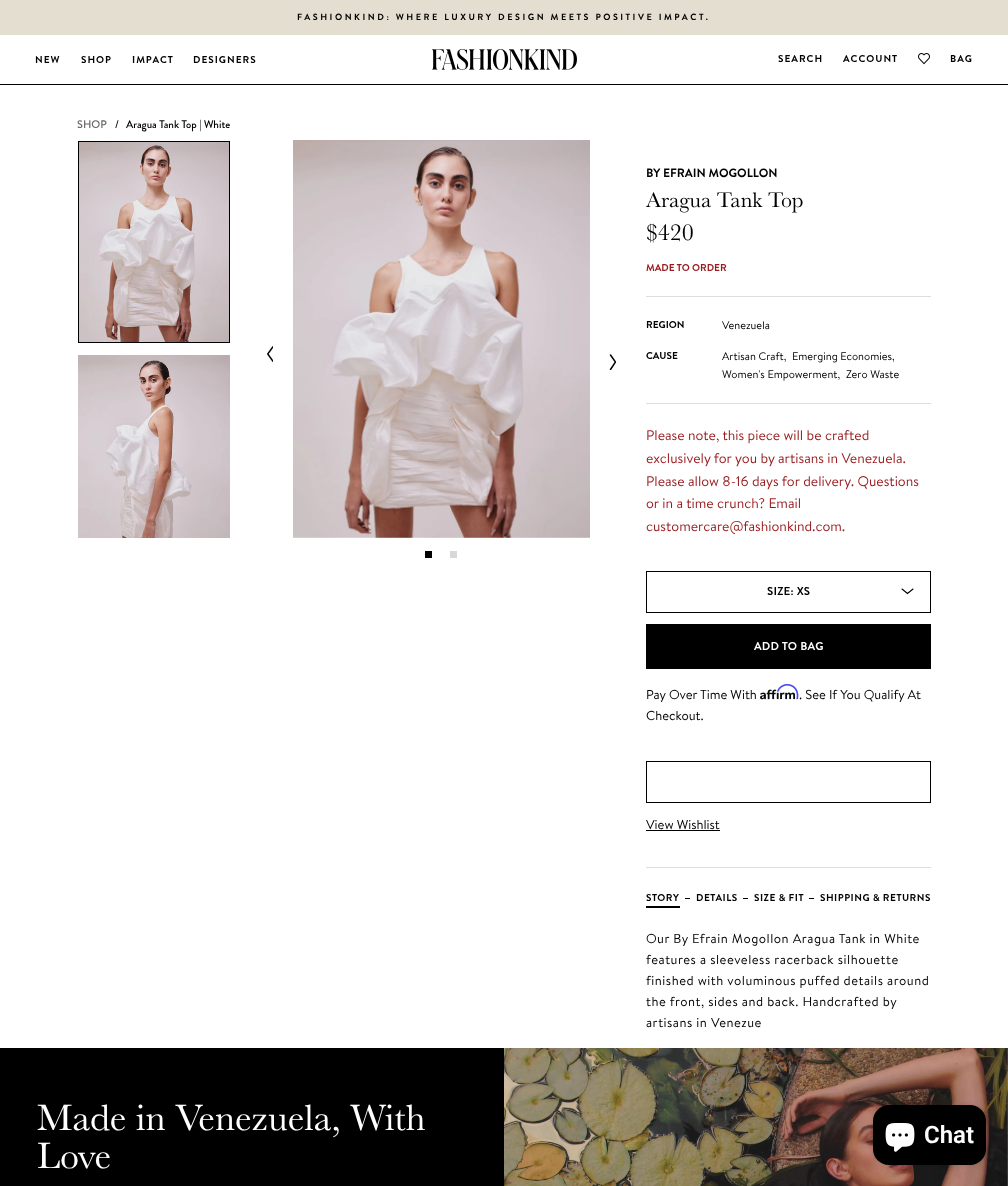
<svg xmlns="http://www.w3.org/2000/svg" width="1008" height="1186">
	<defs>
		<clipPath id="clip1"><rect x="609" y="354" width="7" height="16" /></clipPath>
	</defs>
	<rect width="100%" height="100%" fill="#FFFFFF" />
	<rect x="0" y="0" width="1008" height="35" fill="#E3DECF" />
	<text x="297" y="20" font-family="'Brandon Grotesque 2'" font-size="9" font-weight="700" letter-spacing="2.5" fill="#000000">FASHIONKIND: WHERE LUXURY DESIGN MEETS POSITIVE IMPACT.</text>
	<rect x="0" y="84" width="1008" height="1" fill="#000000" />
	<g font-family="'Brandon Grotesque 2'" font-size="10" font-weight="700" letter-spacing="1" fill="#000000">
		<text x="35" y="63">NEW</text>
		<text x="81" y="63">SHOP</text>
		<text x="132" y="63">IMPACT</text>
		<text x="193" y="63">DESIGNERS</text>
	</g>
	<image x="432" y="49" width="145" height="21" href="assets/img1.png" />
	<g font-family="'Brandon Grotesque 2'" font-size="10" font-weight="700" letter-spacing="1" fill="#000000">
		<text x="778" y="62">SEARCH</text>
		<text x="843" y="62">ACCOUNT</text>
	</g>
	<image x="918" y="53" width="12" height="12" href="assets/img2.png" />
	<text x="950" y="62" font-family="'Brandon Grotesque 2'" font-size="10" font-weight="700" letter-spacing="1" fill="#000000">BAG</text>
	<text x="77" y="128" font-family="Brandon Grotesque" font-size="11" font-weight="500" fill="#666666">SHOP</text>
	<g font-family="Brandon Grotesque" font-size="11" font-weight="500" fill="#000000">
		<text x="115" y="128">/</text>
		<text x="126" y="128">Aragua Tank Top | White</text>
	</g>
	<rect x="78.5" y="141.5" width="151" height="201" fill="none" stroke="#000000" />
	<image x="79" y="142" width="150" height="200" href="assets/img3.png" />
	<image x="78" y="355" width="152" height="183" href="assets/img4.png" />
	<image x="267" y="346" width="6" height="16" href="assets/img5.png" />
	<image x="293" y="140" width="297" height="398" href="assets/img6.png" />
	<g clip-path="url(#clip1)">
		<path d="M610.5 355L615.5 362L610.5 369.5" fill="none" stroke="#000000" stroke-width="1.5" stroke-linecap="round" stroke-linejoin="round" />
	</g>
	<rect x="425" y="551" width="7" height="7" fill="#000000" />
	<rect x="450" y="551" width="7" height="7" fill="#D8D8D8" />
	<text x="646" y="177" font-family="'Brandon Grotesque 2'" font-size="12" font-weight="700" fill="#000000">BY EFRAIN MOGOLLON</text>
	<rect x="646" y="296" width="285" height="1" fill="#DDDDDD" />
	<text x="646" y="207" font-family="Baskerville" font-size="22" fill="#000000">Aragua Tank Top</text>
	<text x="646" y="240" font-family="Baskerville" font-size="24" fill="#000000">$420</text>
	<text x="646" y="271" font-family="'Brandon Grotesque 2'" font-size="10" font-weight="700" fill="#981B1E">MADE TO ORDER</text>
	<text x="646" y="328" font-family="'Brandon Grotesque 2'" font-size="10" font-weight="700" fill="#000000">REGION</text>
	<text x="722" y="329" font-family="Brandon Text" font-size="11" fill="#000000">Venezuela</text>
	<rect x="646" y="403" width="285" height="1" fill="#DDDDDD" />
	<text x="646" y="359" font-family="'Brandon Grotesque 2'" font-size="10" font-weight="700" fill="#000000">CAUSE</text>
	<g font-family="Brandon Text" font-size="11" fill="#000000">
		<text x="722" y="360">Artisan Craft,</text>
		<text x="792" y="360">Emerging Economies,</text>
		<text x="722" y="378">Women's Empowerment,</text>
		<text x="846" y="378">Zero Waste</text>
	</g>
	<g font-family="Brandon Text" font-size="14" fill="#981B1E">
		<text x="646" y="440">Please note, this piece will be crafted</text>
		<text x="646" y="463">exclusively for you by artisans in Venezuela.</text>
		<text x="646" y="486">Please allow 8-16 days for delivery. Questions</text>
		<text x="646" y="508">or in a time crunch? Email</text>
		<text x="646" y="531">customercare@fashionkind.com.</text>
	</g>
	<rect x="646.5" y="571.5" width="284" height="41" fill="none" stroke="#000000" />
	<text x="767" y="595" font-family="Brandon Grotesque" font-size="11" font-weight="700" letter-spacing="0.5" fill="#000000">SIZE: XS</text>
	<path d="M913 589L907.5 593.5L902 589" fill="none" stroke="#000000" stroke-width="1.1" stroke-linecap="round" />
	<rect x="646" y="624" width="285" height="45" fill="#000000" />
	<text x="754" y="650" font-family="Brandon Grotesque" font-size="11" font-weight="700" letter-spacing="0.5" fill="#FFFFFF">ADD TO BAG</text>
	<text x="646" y="699" font-family="Brandon Text" font-size="13" fill="#000000">Pay Over Time With</text>
	<image x="760" y="689" width="36" height="11" href="assets/img8.png" />
	<image x="776" y="683" width="23" height="17" href="assets/img7.png" />
	<g font-family="Brandon Text" font-size="13" fill="#000000">
		<text x="799" y="699">. See If You Qualify At</text>
		<text x="646" y="720">Checkout.</text>
	</g>
	<rect x="646.5" y="761.5" width="284" height="41" fill="none" stroke="#000000" />
	<text x="646" y="829" font-family="Brandon Text" font-size="13" fill="#000000">View Wishlist</text>
	<rect x="646" y="830" width="74" height="1" fill="#000000" />
	<rect x="646" y="867" width="285" height="1" fill="#DDDDDD" />
	<rect x="646" y="906" width="34" height="2" fill="#000000" />
	<text x="646" y="901" font-family="'Brandon Grotesque 2'" font-size="10" font-weight="700" letter-spacing="0.5" fill="#000000">STORY</text>
	<rect x="685" y="898" width="5" height="1" fill="#000000" />
	<text x="696" y="901" font-family="'Brandon Grotesque 2'" font-size="10" font-weight="700" letter-spacing="0.5" fill="#000000">DETAILS</text>
	<rect x="743" y="898" width="5" height="1" fill="#000000" />
	<text x="754" y="901" font-family="'Brandon Grotesque 2'" font-size="10" font-weight="700" letter-spacing="0.5" fill="#000000">SIZE &amp; FIT</text>
	<rect x="809" y="898" width="5" height="1" fill="#000000" />
	<text x="820" y="901" font-family="'Brandon Grotesque 2'" font-size="10" font-weight="700" letter-spacing="0.5" fill="#000000">SHIPPING &amp; RETURNS</text>
	<g font-family="Brandon Text" font-size="13" letter-spacing="0.5" fill="#000000">
		<text x="646" y="943">Our By Efrain Mogollon Aragua Tank in White</text>
		<text x="646" y="964">features a sleeveless racerback silhouette</text>
		<text x="646" y="985">finished with voluminous puffed details around</text>
		<text x="646" y="1006">the front, sides and back. Handcrafted by</text>
		<text x="646" y="1027">artisans in Venezue</text>
	</g>
	<rect x="0" y="1048" width="504" height="138" fill="#000000" />
	<g font-family="Baskerville" font-size="38" fill="#FFFFFF">
		<text x="37" y="1130">Made in Venezuela, With</text>
		<text x="37" y="1168">Love</text>
	</g>
	<image x="504" y="1048" width="504" height="138" href="assets/img9.png" />
	<rect x="873" y="1105" width="113" height="60" rx="16" fill="#000000" fill-opacity="0.15" filter="blur(2.5px)" />
	<rect x="873" y="1105" width="113" height="60" rx="16" fill="#000000" />
	<image x="885" y="1123" width="30" height="29" href="assets/img10.png" />
	<text x="924" y="1143" font-family="Roboto" font-size="24" font-weight="600" fill="#FFFFFF">Chat</text>
</svg>
